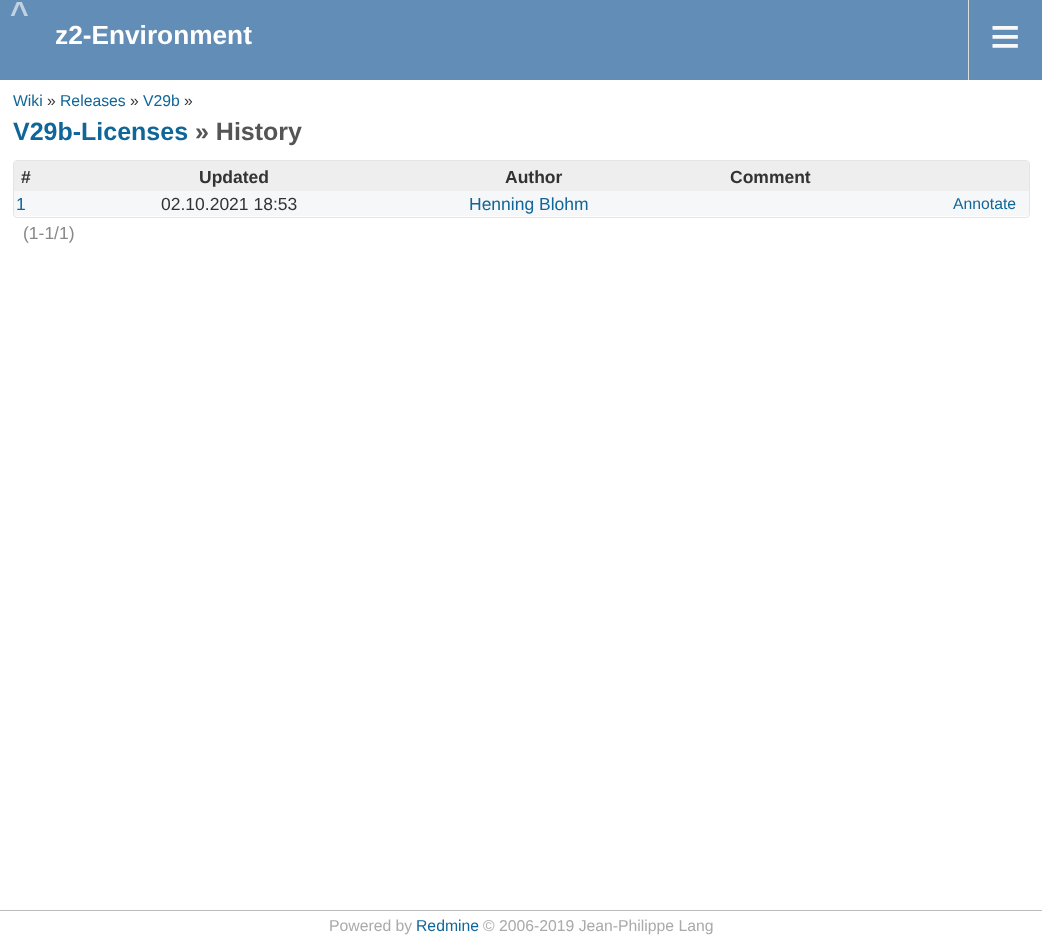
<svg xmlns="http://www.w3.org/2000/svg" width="1042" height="941">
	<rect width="100%" height="100%" fill="#FFFFFF" />
	<rect x="0" y="0" width="1042" height="80" fill="#628DB6" />
	<text x="10" y="24" font-family="Liberation Sans" font-size="32" font-weight="700" letter-spacing="5" fill="#C0D1E2">^</text>
	<text x="55" y="44" font-family="Liberation Sans" font-size="26.25" font-weight="700" fill="#FFFFFF">z2-Environment</text>
	<rect x="968" y="0" width="1" height="80" fill="#DDDDDD" />
	<text x="990" y="54" font-family="Liberation Sans" font-size="52" fill="#F8F8F8">≡</text>
	<text x="13" y="106" font-family="Liberation Sans" font-size="15.75" fill="#116699">Wiki</text>
	<text x="47" y="106" font-family="Liberation Sans" font-size="15.75" fill="#333333">»</text>
	<text x="60" y="106" font-family="Liberation Sans" font-size="15.75" fill="#116699">Releases</text>
	<text x="130" y="106" font-family="Liberation Sans" font-size="15.75" fill="#333333">»</text>
	<text x="143" y="106" font-family="Liberation Sans" font-size="15.75" fill="#116699">V29b</text>
	<text x="184" y="106" font-family="Liberation Sans" font-size="15.75" fill="#333333">»</text>
	<text x="13" y="140" font-family="Liberation Sans" font-size="25" font-weight="700" fill="#116699">V29b-Licenses</text>
	<text x="195" y="140" font-family="Liberation Sans" font-size="25" font-weight="700" fill="#555555">» History</text>
	<rect x="13.5" y="160.5" width="1016" height="57" rx="3.5" fill="none" stroke="#E4E4E4" />
	<rect x="39" y="161" width="826" height="30" fill="#EEEEEE" />
	<path d="M865 161H1026.5C1028 161 1029 162 1029 163.5V191H865Z" fill="#EEEEEE" />
	<path d="M16.5 161H39V191H14V163.5C14 162 15 161 16.5 161Z" fill="#EEEEEE" />
	<g font-family="Liberation Sans" font-size="17.5" font-weight="700" fill="#333333">
		<text x="21" y="183">#</text>
		<text x="199" y="183">Updated</text>
		<text x="505" y="183">Author</text>
		<text x="730" y="183">Comment</text>
	</g>
	<path d="M14 191H1029V213.5C1029 215 1028 216 1026.5 216H16.5C15 216 14 215 14 213.5Z" fill="#F6F7F8" />
	<text x="16" y="210" font-family="Liberation Sans" font-size="17.5" fill="#116699">1</text>
	<text x="161" y="210" font-family="Liberation Sans" font-size="17.5" fill="#333333">02.10.2021 18:53</text>
	<text x="469" y="210" font-family="Liberation Sans" font-size="17.5" fill="#116699">Henning Blohm</text>
	<text x="953" y="209" font-family="Liberation Sans" font-size="15.75" fill="#116699">Annotate</text>
	<text x="23" y="239" font-family="Liberation Sans" font-size="17.5" fill="#888888">(1-1/1)</text>
	<rect x="0" y="910" width="1042" height="1" fill="#BBBBBB" />
	<text x="329" y="931" font-family="Liberation Sans" font-size="15.75" fill="#AAAAAA">Powered by</text>
	<text x="416" y="931" font-family="Liberation Sans" font-size="15.75" fill="#116699">Redmine</text>
	<text x="483" y="931" font-family="Liberation Sans" font-size="15.75" fill="#AAAAAA">© 2006-2019 Jean-Philippe Lang</text>
</svg>
